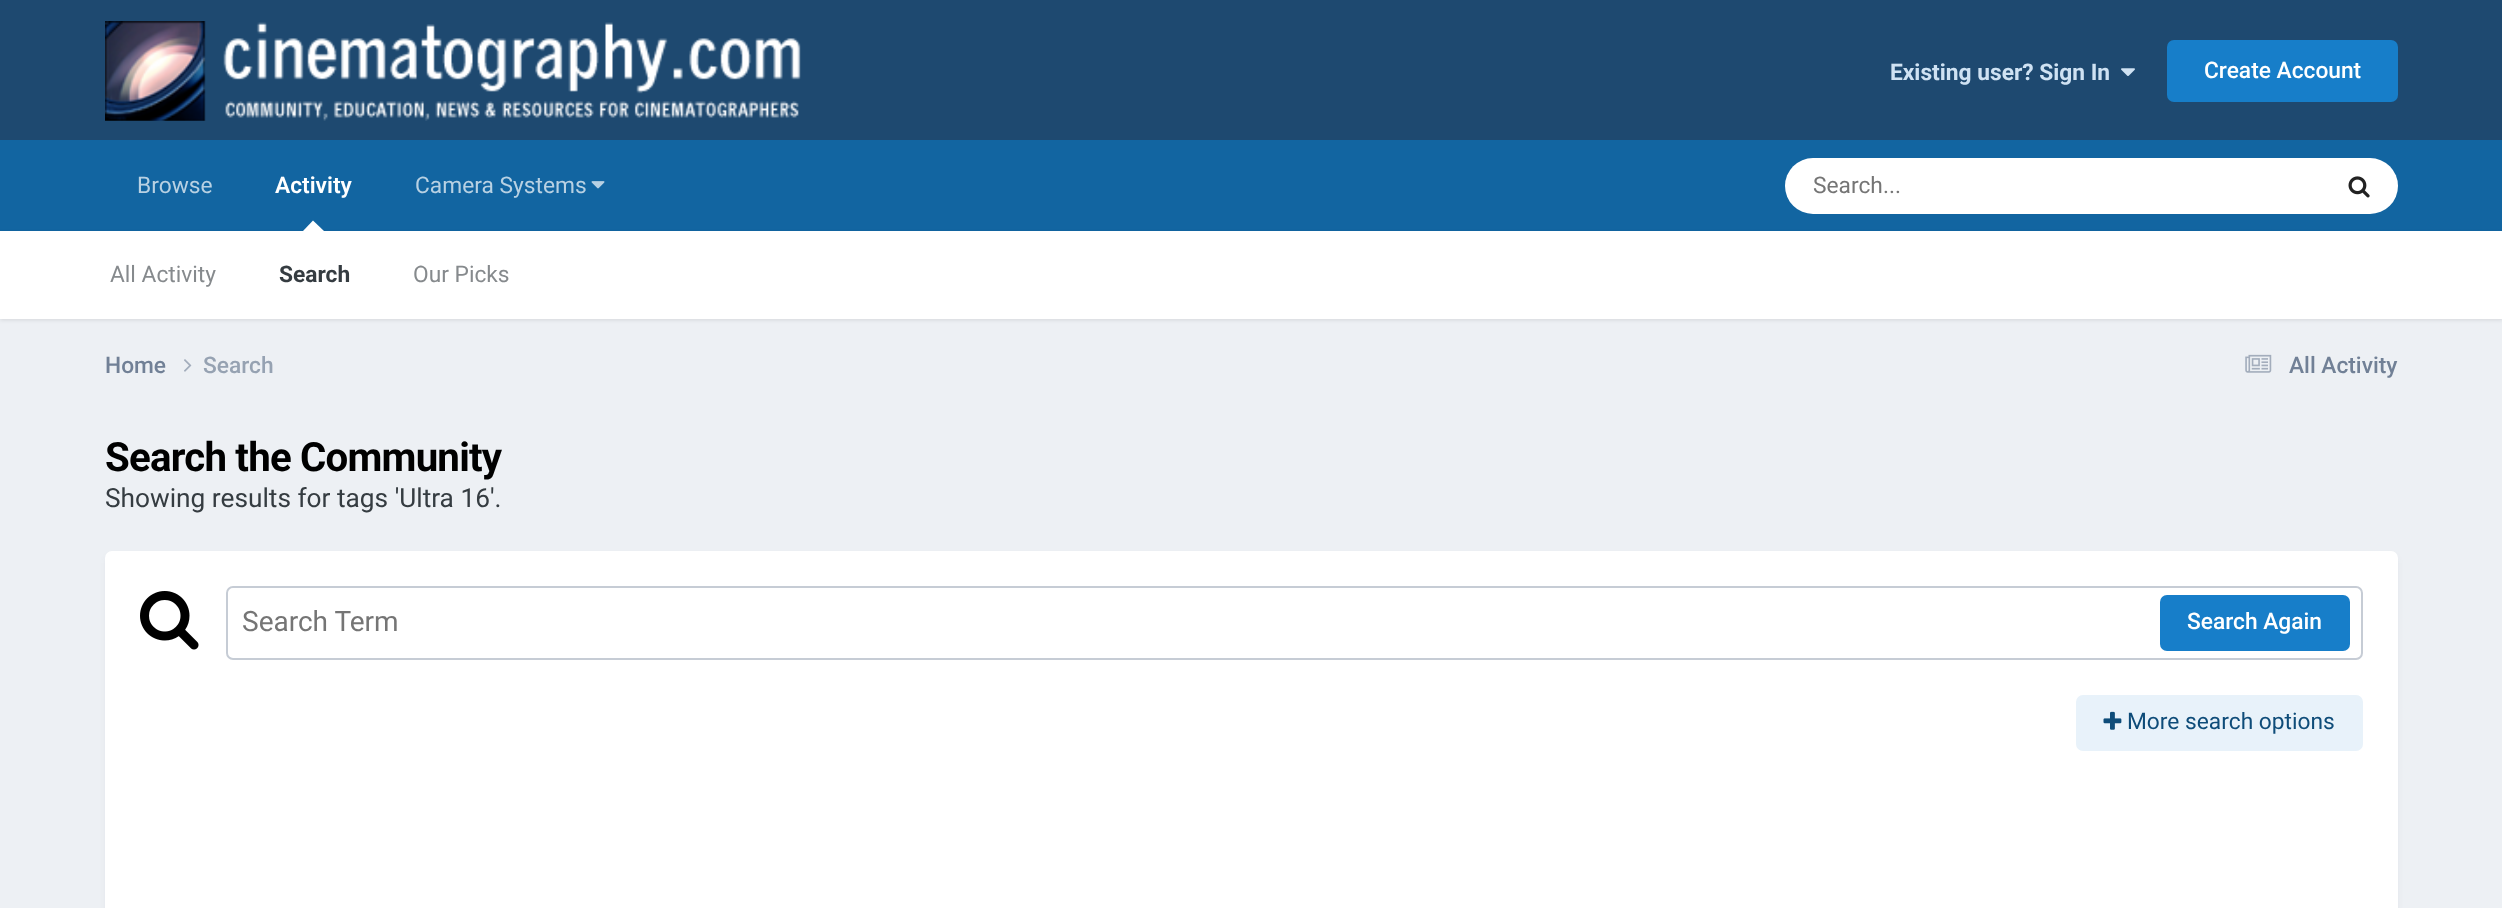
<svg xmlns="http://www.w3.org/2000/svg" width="2502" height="908">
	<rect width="100%" height="100%" fill="#EDF0F4" />
	<rect x="0" y="0" width="2502" height="140" fill="#1E4970" />
	<image x="105" y="21" width="696" height="100" href="assets/img1.png" />
	<text x="1890" y="80" font-family="Roboto" font-size="22.75" font-weight="700" fill="#CFE2F3">Existing user? Sign In</text>
	<image x="2121" y="68" width="14" height="8" href="assets/img2.png" />
	<rect x="2167" y="40" width="231" height="62" rx="7" fill="#177EC9" />
	<text x="2204" y="78" font-family="Roboto" font-size="22.75" font-weight="500" fill="#FFFFFF">Create Account</text>
	<rect x="0" y="140" width="2502" height="91" fill="#1265A1" />
	<text x="275" y="193" font-family="Roboto" font-size="22.75" font-weight="600" fill="#FFFFFF">Activity</text>
	<rect x="0" y="233" width="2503" height="87" fill="#000000" fill-opacity="0.1" filter="blur(2px)" />
	<path d="M324 231H303L313 220.5Z" fill="#FFFFFF" />
	<rect x="0" y="231" width="2502" height="88" fill="#FFFFFF" />
	<text x="110" y="282" font-family="Roboto" font-size="22.75" fill="#868A8D">All Activity</text>
	<text x="279" y="282" font-family="Roboto" font-size="22.75" font-weight="700" fill="#353C41">Search</text>
	<text x="413" y="282" font-family="Roboto" font-size="22.75" fill="#868A8D">Our Picks</text>
	<g font-family="Roboto" font-size="22.75" fill="#B8D1E3">
		<text x="137" y="193">Browse</text>
		<text x="415" y="193">Camera Systems</text>
	</g>
	<image x="591" y="181" width="14" height="8" href="assets/img3.png" />
	<rect x="1785" y="158" width="613" height="56" rx="28" fill="#FFFFFF" />
	<text x="1813" y="193" font-family="Roboto" font-size="22.75" fill="#757575">Search...</text>
	<image x="2348" y="176" width="22" height="22" href="assets/img4.png" />
	<text x="105" y="373" font-family="Roboto" font-size="22.75" font-weight="500" fill="#718096">Home</text>
	<image x="184" y="359" width="8" height="13" href="assets/img5.png" />
	<text x="203" y="373" font-family="Roboto" font-size="22.75" font-weight="500" fill="#96A2B2">Search</text>
	<image x="2245" y="354" width="27" height="19" href="assets/img6.png" />
	<text x="2289" y="373" font-family="Roboto" font-size="22.75" font-weight="500" fill="#718096">All Activity</text>
	<text x="105" y="471" font-family="Roboto" font-size="40.25" font-weight="700" letter-spacing="-0.8" fill="#000000">Search the Community</text>
	<text x="105" y="507" font-family="Roboto" font-size="26.25" fill="#353C41">Showing results for tags 'Ultra 16'.</text>
	<rect x="107" y="557" width="2289" height="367" rx="5" fill="#2D3748" fill-opacity="0.1" filter="blur(3.5px)" />
	<rect x="105" y="551" width="2293" height="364" rx="7" fill="#FFFFFF" />
	<image x="140" y="591" width="59" height="59" href="assets/img7.png" />
	<rect x="227" y="587" width="2135" height="72" rx="6" fill="none" stroke="#C6CCD5" stroke-width="2" />
	<text x="242" y="631" font-family="Roboto" font-size="28" fill="#757575">Search Term</text>
	<rect x="2160" y="595" width="190" height="56" rx="7" fill="#177EC9" />
	<text x="2187" y="629" font-family="Roboto" font-size="22.75" font-weight="500" fill="#FFFFFF">Search Again</text>
	<rect x="2076" y="695" width="287" height="56" rx="7" fill="#E8F2FA" />
	<image x="2103" y="711" width="19" height="19" href="assets/img8.png" />
	<text x="2127" y="729" font-family="Roboto" font-size="22.75" fill="#0E4C79">More search options</text>
</svg>
